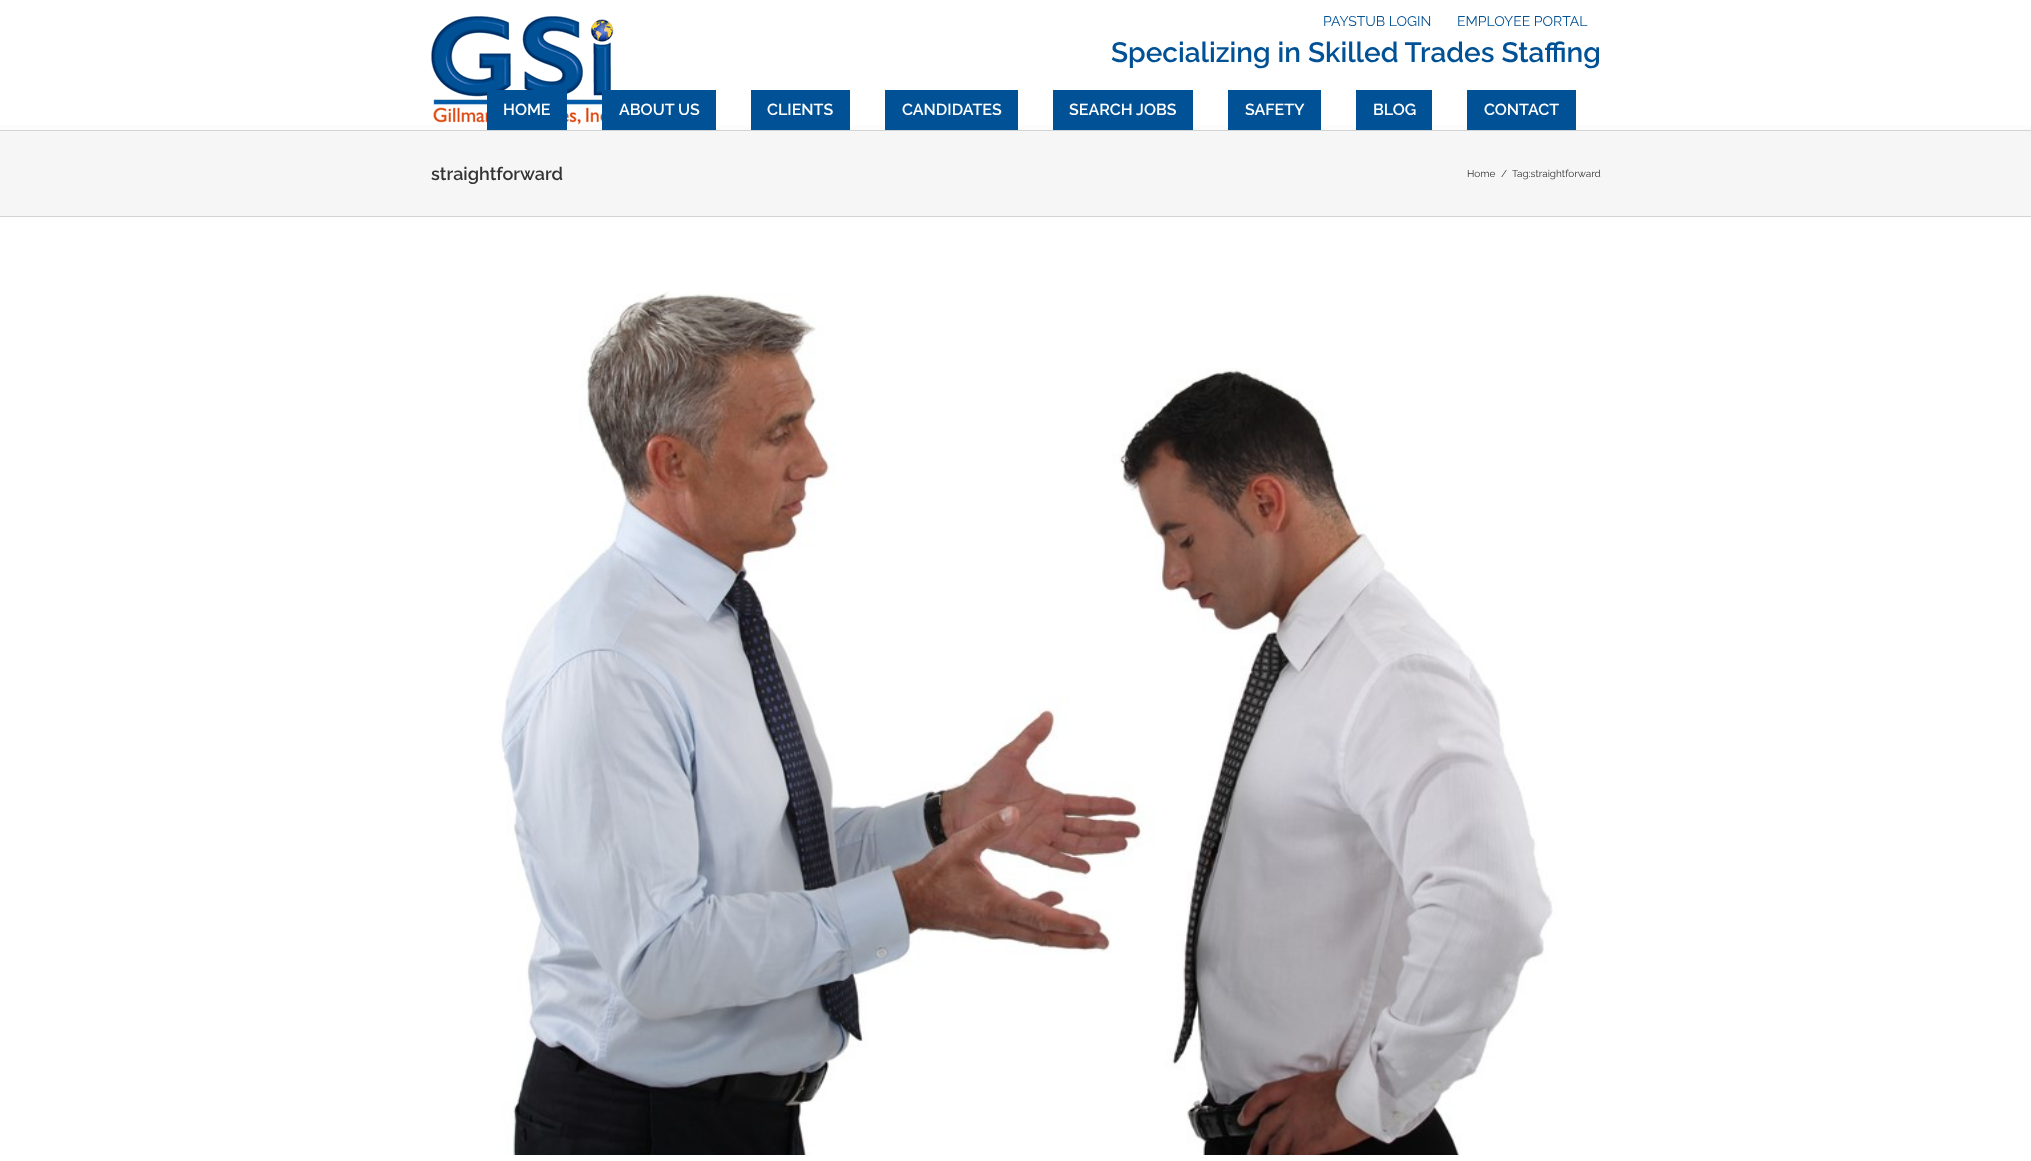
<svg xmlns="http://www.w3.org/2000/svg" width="2031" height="1161">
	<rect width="100%" height="100%" fill="#FFFFFF" />
	<g font-family="Raleway" font-size="14" fill="#005195">
		<text x="1323" y="26">PAYSTUB LOGIN</text>
		<text x="1457" y="26">EMPLOYEE PORTAL</text>
	</g>
	<image x="431" y="16" width="183" height="109" href="assets/img1.png" />
	<text x="1111" y="62" font-family="Raleway" font-size="28" font-weight="600" fill="#005195">Specializing in Skilled Trades Staffing</text>
	<rect x="0" y="125" width="2031" height="5" fill="#FCFCFC" />
	<rect x="487" y="90" width="80" height="40" fill="#005195" />
	<text x="503" y="115" font-family="Raleway" font-size="16" font-weight="600" fill="#FFFFFF">HOME</text>
	<rect x="602" y="90" width="114" height="40" fill="#005195" />
	<text x="619" y="115" font-family="Raleway" font-size="16" font-weight="600" fill="#FFFFFF">ABOUT US</text>
	<rect x="751" y="90" width="99" height="40" fill="#005195" />
	<text x="767" y="115" font-family="Raleway" font-size="16" font-weight="600" fill="#FFFFFF">CLIENTS</text>
	<rect x="885" y="90" width="133" height="40" fill="#005195" />
	<text x="902" y="115" font-family="Raleway" font-size="16" font-weight="600" fill="#FFFFFF">CANDIDATES</text>
	<rect x="1053" y="90" width="140" height="40" fill="#005195" />
	<text x="1069" y="115" font-family="Raleway" font-size="16" font-weight="600" fill="#FFFFFF">SEARCH JOBS</text>
	<rect x="1228" y="90" width="93" height="40" fill="#005195" />
	<text x="1245" y="115" font-family="Raleway" font-size="16" font-weight="600" fill="#FFFFFF">SAFETY</text>
	<rect x="1356" y="90" width="76" height="40" fill="#005195" />
	<text x="1373" y="115" font-family="Raleway" font-size="16" font-weight="600" fill="#FFFFFF">BLOG</text>
	<rect x="1467" y="90" width="109" height="40" fill="#005195" />
	<text x="1484" y="115" font-family="Raleway" font-size="16" font-weight="600" fill="#FFFFFF">CONTACT</text>
	<rect x="0" y="131" width="2031" height="85" fill="#F6F6F6" />
	<rect x="0" y="130" width="2031" height="1" fill="#D2D3D4" />
	<rect x="0" y="216" width="2031" height="1" fill="#D2D3D4" />
	<text x="431" y="180" font-family="Raleway" font-size="18" font-weight="600" fill="#333333">straightforward</text>
	<g font-family="Raleway" font-size="10" fill="#333333">
		<text x="1467" y="177">Home</text>
		<text x="1501" y="177">/</text>
		<text x="1512" y="177">Tag:straightforward</text>
	</g>
	<image x="498" y="291" width="1059" height="864" href="assets/img2.png" />
</svg>
